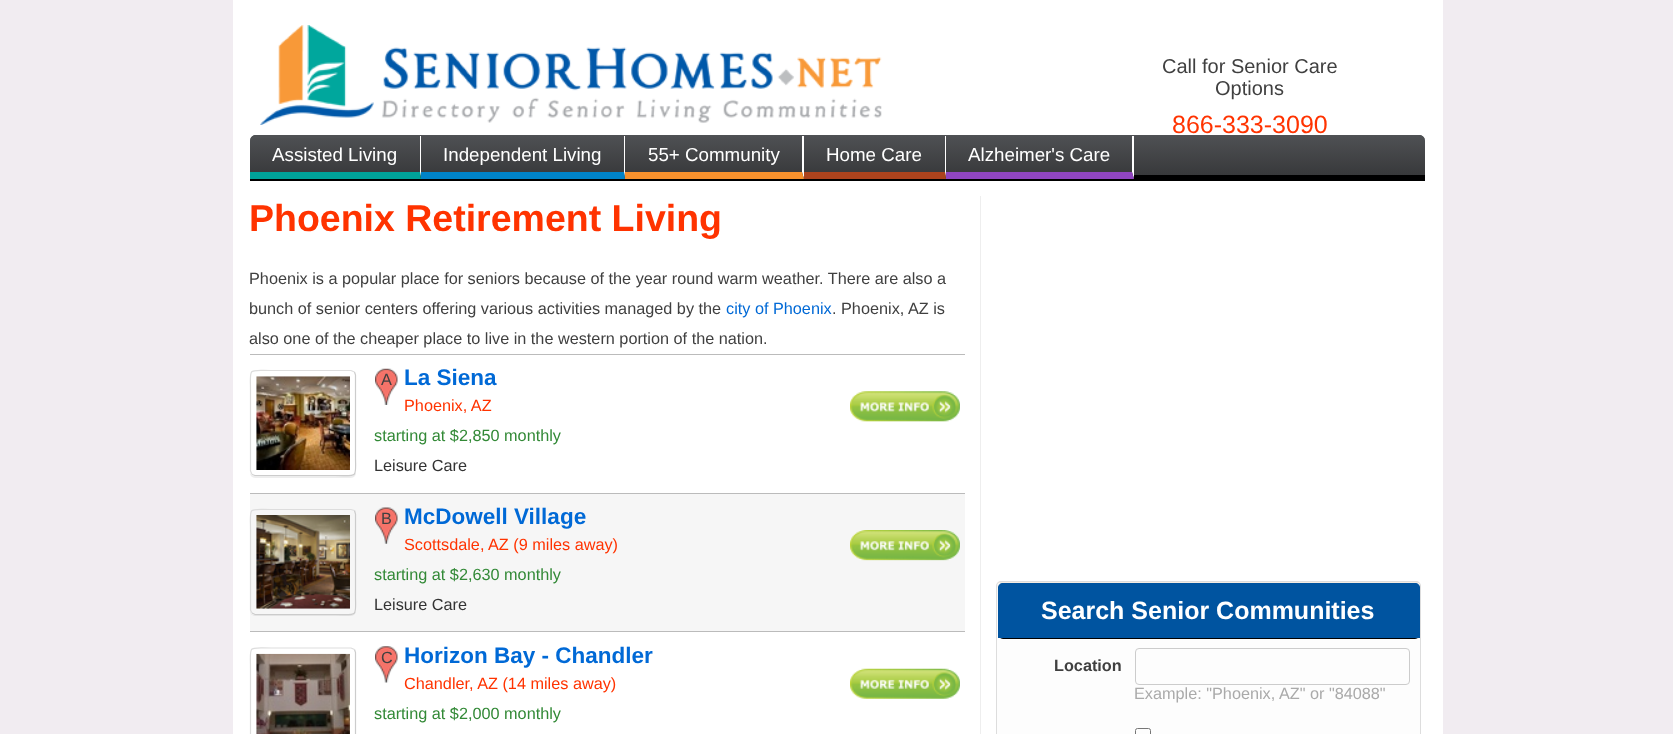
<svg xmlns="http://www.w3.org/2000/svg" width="1673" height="734">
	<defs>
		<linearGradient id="g1" gradientUnits="userSpaceOnUse" x1="838" y1="135" x2="838" y2="175"><stop offset="0" stop-color="#4F5154" /><stop offset="1" stop-color="#38393B" /></linearGradient>
		<clipPath id="clip1"><path d="M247 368H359V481H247ZM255 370H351C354 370 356 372 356 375V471C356 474 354 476 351 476H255C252 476 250 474 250 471V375C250 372 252 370 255 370Z" clip-rule="evenodd" /></clipPath>
		<clipPath id="clip2"><path d="M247 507H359V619H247ZM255 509H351C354 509 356 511 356 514V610C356 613 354 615 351 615H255C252 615 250 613 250 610V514C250 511 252 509 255 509Z" clip-rule="evenodd" /></clipPath>
		<clipPath id="clip3"><rect x="996" y="581" width="425" height="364" rx="5" /></clipPath>
		<linearGradient id="g2" gradientUnits="userSpaceOnUse" x1="1209" y1="221" x2="1209" y2="583"><stop offset="0" stop-color="#F5F5F5" /><stop offset="0.1" stop-color="#FDFDFD" /><stop offset="0.9" stop-color="#FDFDFD" /><stop offset="1" stop-color="#F4EBE2" /></linearGradient>
		<linearGradient id="g3" gradientUnits="userSpaceOnUse" x1="1209" y1="583" x2="1209" y2="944"><stop offset="0" stop-color="#F5F5F5" /><stop offset="0.1" stop-color="#FDFDFD" /><stop offset="0.9" stop-color="#FDFDFD" /><stop offset="1" stop-color="#F4EBE2" /></linearGradient>
	</defs>
	<rect width="100%" height="100%" fill="#F1ECF1" />
	<rect x="233" y="0" width="1210" height="734" fill="#FFFFFF" />
	<image x="260" y="25" width="622" height="100" href="assets/img1.png" />
	<g font-family="Liberation Sans" font-size="20" fill="#404040">
		<text x="1162" y="73">Call for Senior Care</text>
		<text x="1215" y="95">Options</text>
	</g>
	<text x="1172" y="133" font-family="Liberation Sans" font-size="25" fill="#FF3300">866-333-3090</text>
	<path d="M256 135H1419C1422.5 135 1425 137.5 1425 141V175H250V141C250 137.5 252.5 135 256 135Z" fill="url(#g1)" />
	<path d="M256 136H1419C1422 136 1425 139 1425 142C1425 138 1423 135 1419 135H256C252 135 250 138 250 142C250 139 253 136 256 136Z" fill="#4F5154" />
	<rect x="250" y="175" width="1175" height="6" fill="#000000" />
	<text x="272" y="161" font-family="Liberation Sans" font-size="18.75" fill="#FFFFFF">Assisted Living</text>
	<path d="M256 138H420V136H256C253 136 250 139 250 142V144C250 140 253 138 256 138Z" fill="#4F5154" />
	<path d="M420 172V136H421V178Z" fill="#FFFFFF" />
	<path d="M420 172L421 179H250V172Z" fill="#00A399" />
	<text x="443" y="161" font-family="Liberation Sans" font-size="18.75" fill="#FFFFFF">Independent Living</text>
	<path d="M625 136V179L624 172V136Z" fill="#FFFFFF" />
	<path d="M625 179H421V172H624Z" fill="#0083C8" />
	<text x="648" y="161" font-family="Liberation Sans" font-size="18.75" fill="#FFFFFF">55+ Community</text>
	<path d="M804 136V179L802 172V136Z" fill="#FFFFFF" />
	<path d="M804 179H625V172H802Z" fill="#F7912D" />
	<text x="826" y="161" font-family="Liberation Sans" font-size="18.75" fill="#FFFFFF">Home Care</text>
	<path d="M946 136V179L945 172V136Z" fill="#FFFFFF" />
	<path d="M946 179H804V172H945Z" fill="#AC431D" />
	<text x="968" y="161" font-family="Liberation Sans" font-size="18.75" fill="#FFFFFF">Alzheimer's Care</text>
	<path d="M1134 136V179L1132 172V136Z" fill="#FFFFFF" />
	<path d="M1134 179H946V172H1132Z" fill="#9045C0" />
	<rect x="980" y="196" width="1" height="538" fill="#EEEEEE" />
	<text x="249" y="231" font-family="Liberation Sans" font-size="37.5" font-weight="700" fill="#FF3300">Phoenix Retirement Living</text>
	<g font-family="Liberation Sans" font-size="16.25" fill="#404040">
		<text x="249" y="284">Phoenix is a popular place for seniors because of the year round warm weather. There are also a</text>
		<text x="249" y="314">bunch of senior centers offering various activities managed by the</text>
	</g>
	<text x="726" y="314" font-family="Liberation Sans" font-size="16.25" fill="#0069D6">city of Phoenix</text>
	<g font-family="Liberation Sans" font-size="16.25" fill="#404040">
		<text x="832" y="314">. Phoenix, AZ is</text>
		<text x="249" y="344">also one of the cheaper place to live in the western portion of the nation.</text>
	</g>
	<rect x="250" y="354" width="715" height="1" fill="#BBBBBB" />
	<g clip-path="url(#clip1)">
		<rect x="250" y="371" width="106" height="107" rx="5" fill="#000000" fill-opacity="0.07" filter="blur(0.5px)" />
	</g>
	<path d="M354.5 372L355.5 375V455C355.5 479 359 475.5 335 475.5H255L252 474.5" fill="none" stroke="#CCCCCC" stroke-width="1.2" />
	<path d="M252 474.5L250.5 471V391C250.5 367 247 370.5 271 370.5H351L354.5 372" fill="none" stroke="#DDDDDD" stroke-width="1.2" />
	<image x="256" y="376" width="94" height="94" href="assets/img2.png" />
	<image x="375" y="368" width="23" height="37" href="assets/img3.png" />
	<text x="381" y="385" font-family="Liberation Sans" font-size="16.25" fill="#404040">A</text>
	<text x="404" y="385" font-family="Liberation Sans" font-size="22.5" font-weight="700" fill="#0069D6">La Siena</text>
	<text x="404" y="411" font-family="Liberation Sans" font-size="16.25" fill="#FF3300">Phoenix, AZ</text>
	<image x="850" y="391" width="110" height="31" href="assets/img4.png" />
	<text x="374" y="441" font-family="Liberation Sans" font-size="16.25" fill="#328936">starting at $2,850 monthly</text>
	<text x="374" y="471" font-family="Liberation Sans" font-size="16.25" fill="#333333">Leisure Care</text>
	<rect x="250" y="494" width="715" height="137" fill="#F6F6F6" />
	<rect x="250" y="493" width="715" height="1" fill="#BBBBBB" />
	<g clip-path="url(#clip2)">
		<rect x="250" y="510" width="106" height="106" rx="5" fill="#000000" fill-opacity="0.07" filter="blur(0.5px)" />
	</g>
	<path d="M354.5 510.5L355.5 514V594C355.5 618 359 614.5 335 614.5H255L252 613" fill="none" stroke="#CCCCCC" stroke-width="1.2" />
	<path d="M252 613L250.5 610V530C250.5 506 247 509.5 271 509.5H351L354.5 510.5" fill="none" stroke="#DDDDDD" stroke-width="1.2" />
	<image x="256" y="515" width="94" height="94" href="assets/img5.png" />
	<image x="375" y="507" width="23" height="37" href="assets/img6.png" />
	<text x="381" y="524" font-family="Liberation Sans" font-size="16.25" fill="#404040">B</text>
	<text x="404" y="524" font-family="Liberation Sans" font-size="22.5" font-weight="700" fill="#0069D6">McDowell Village</text>
	<text x="404" y="550" font-family="Liberation Sans" font-size="16.25" fill="#FF3300">Scottsdale, AZ (9 miles away)</text>
	<image x="850" y="530" width="110" height="31" href="assets/img7.png" />
	<text x="374" y="580" font-family="Liberation Sans" font-size="16.25" fill="#328936">starting at $2,630 monthly</text>
	<text x="374" y="610" font-family="Liberation Sans" font-size="16.25" fill="#333333">Leisure Care</text>
	<rect x="250" y="631" width="715" height="1" fill="#BBBBBB" />
	<path d="M354.5 649.5L355.5 652.5V732.5C355.5 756.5 359 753 335 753H255L252 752" fill="none" stroke="#CCCCCC" stroke-width="1.2" />
	<path d="M252 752L250.5 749V668.5C250.5 644.5 247 648 271 648H351L354.5 649.5" fill="none" stroke="#DDDDDD" stroke-width="1.2" />
	<image x="256" y="653" width="94" height="81" href="assets/img8.png" />
	<image x="375" y="646" width="23" height="37" href="assets/img9.png" />
	<text x="381" y="663" font-family="Liberation Sans" font-size="16.25" fill="#404040">C</text>
	<text x="404" y="663" font-family="Liberation Sans" font-size="22.5" font-weight="700" fill="#0069D6">Horizon Bay - Chandler</text>
	<text x="404" y="689" font-family="Liberation Sans" font-size="16.25" fill="#FF3300">Chandler, AZ (14 miles away)</text>
	<image x="850" y="668" width="110" height="31" href="assets/img10.png" />
	<text x="374" y="719" font-family="Liberation Sans" font-size="16.25" fill="#328936">starting at $2,000 monthly</text>
	<rect x="996" y="583" width="425" height="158" rx="5" fill="#000000" fill-opacity="0.5" filter="blur(0.5px)" />
	<g clip-path="url(#clip3)">
		<rect x="996" y="581" width="425" height="2" fill="url(#g2)" />
		<rect x="996" y="583" width="425" height="151" fill="url(#g3)" />
	</g>
	<rect x="996.5" y="581.5" width="424" height="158" rx="4.5" fill="none" stroke="#DDDDDD" />
	<rect x="998" y="584" width="422" height="55" rx="5" fill="#000000" filter="blur(0.5px)" />
	<path d="M1003 583H1415C1418 583 1420 585 1420 588V638H998V588C998 585 1000 583 1003 583Z" fill="#0054A0" />
	<text x="1041" y="619" font-family="Liberation Sans" font-size="25" font-weight="700" fill="#FFFFFF">Search Senior Communities</text>
	<text x="1054" y="671" font-family="Liberation Sans" font-size="16.25" font-weight="700" fill="#404040">Location</text>
	<rect x="1135.5" y="648.5" width="274" height="36" rx="3.5" fill="none" stroke="#CCCCCC" />
	<text x="1134" y="699" font-family="Liberation Sans" font-size="16.25" fill="#AAAAAA">Example: "Phoenix, AZ" or "84088"</text>
	<rect x="1135.5" y="728.5" width="15" height="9" rx="2" fill="none" stroke="#767676" />
</svg>
